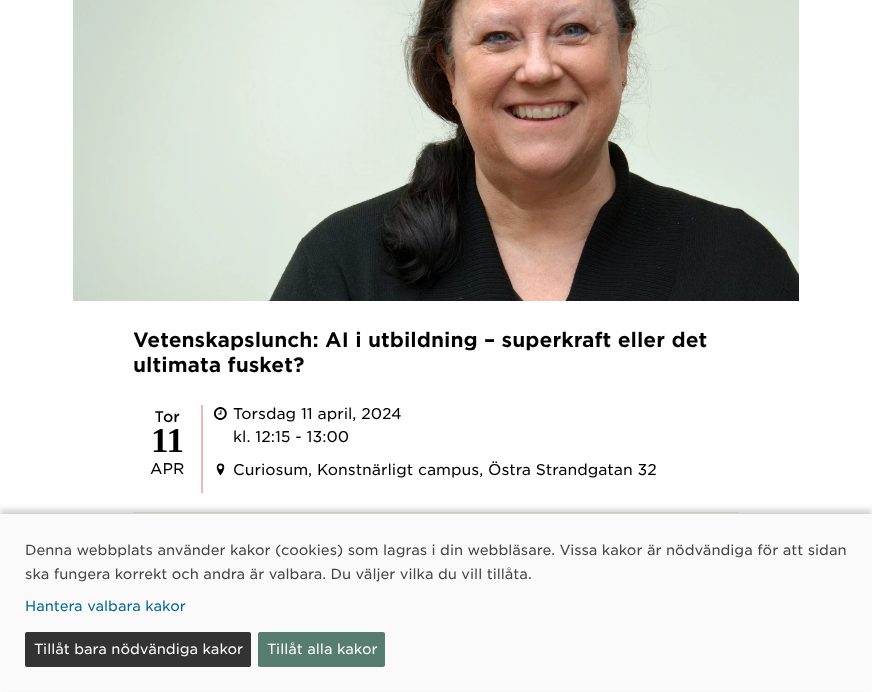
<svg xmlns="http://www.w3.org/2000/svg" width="872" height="692">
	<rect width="100%" height="100%" fill="#FFFFFF" />
	<image x="73" y="0" width="726" height="301" href="assets/img1.png" />
	<g font-family="'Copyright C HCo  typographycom'" font-size="20" fill="#000000">
		<text x="133" y="347">Vetenskapslunch: AI i utbildning – superkraft eller det</text>
		<text x="133" y="372">ultimata fusket?</text>
	</g>
	<rect x="201" y="405" width="2" height="88" fill="#EABAB9" />
	<text x="155" y="422" font-family="Noto Sans" font-size="15" font-weight="500" fill="#000000">T</text>
	<text x="163" y="422" font-family="'Copyright C HCo  typographycom'" font-size="15" font-weight="300" fill="#000000">or</text>
	<text x="151" y="452" font-family="Liberation Serif" font-size="35" font-weight="700" fill="#000000">11</text>
	<text x="150" y="474" font-family="'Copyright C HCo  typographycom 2'" font-size="15" font-weight="300" fill="#000000">APR</text>
	<image x="213" y="407" width="14" height="13" href="assets/img2.png" />
	<g font-family="'Copyright C HCo  typographycom 2'" font-size="15" font-weight="300" fill="#000000">
		<text x="233" y="419">Torsdag 11 april, 2024</text>
		<text x="233" y="442">kl. 12:15 - 13:00</text>
	</g>
	<image x="216" y="463" width="9" height="13" href="assets/img3.png" />
	<text x="233" y="475" font-family="'Copyright C HCo  typographycom 2'" font-size="15" font-weight="300" fill="#000000">Curiosum, Konstnärligt campus, Östra Strandgatan 32</text>
	<rect x="133" y="512" width="606" height="1" fill="#F1EFE4" />
	<rect x="0" y="510" width="872" height="178" fill="#000000" fill-opacity="0.2" filter="blur(3px)" />
	<rect x="0" y="514" width="872" height="177" fill="#FAFAFA" />
	<g font-family="'Copyright C HCo  typographycom 2'" font-size="14" font-weight="300" fill="#444444">
		<text x="25" y="555">Denna webbplats använder kakor (cookies) som lagras i din webbläsare. Vissa kakor är nödvändiga för att sidan</text>
		<text x="25" y="579">ska fungera korrekt och andra är valbara. Du väljer vilka du vill tillåta.</text>
	</g>
	<text x="25" y="611" font-family="'Copyright C HCo  typographycom 2'" font-size="14" font-weight="300" fill="#006699">Hantera valbara kakor</text>
	<rect x="25" y="632" width="226" height="35" rx="2" fill="#333333" />
	<text x="34" y="654" font-family="'Copyright C HCo  typographycom 2'" font-size="14" font-weight="300" fill="#FFFFFF">Tillåt bara nödvändiga kakor</text>
	<rect x="258" y="632" width="127" height="35" rx="2" fill="#567D70" />
	<text x="267" y="654" font-family="'Copyright C HCo  typographycom 2'" font-size="14" font-weight="300" fill="#FFFFFF">Tillåt alla kakor</text>
</svg>
